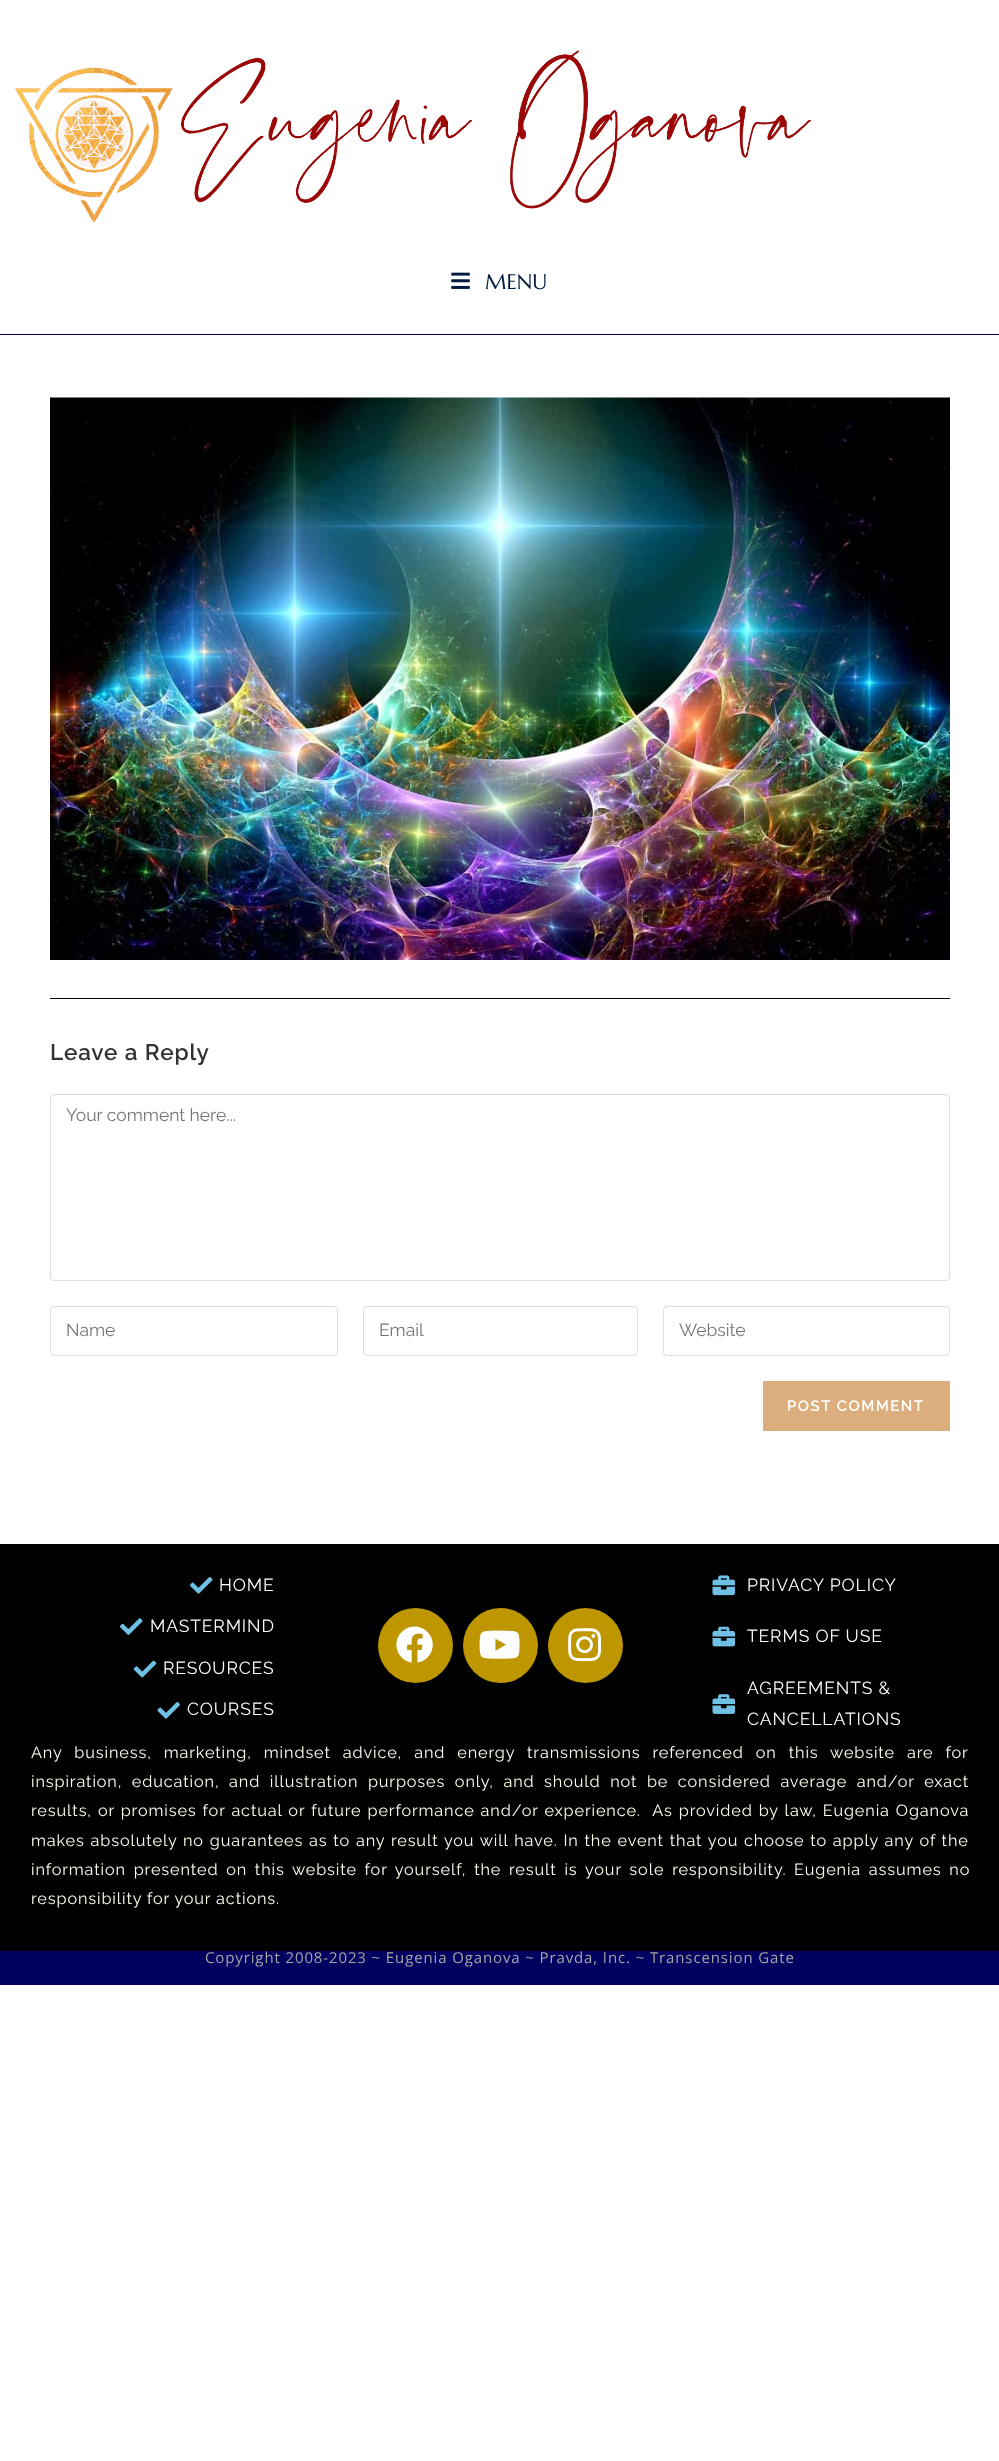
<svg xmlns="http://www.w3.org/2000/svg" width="999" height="2461">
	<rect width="100%" height="100%" fill="#FFFFFF" />
	<rect x="0" y="334" width="999" height="1" fill="#010060" />
	<image x="15" y="50" width="796" height="173" href="assets/img1.png" />
	<image x="451" y="272" width="19" height="17" href="assets/img2.png" />
	<text x="485" y="289" font-family="Marcellus" font-size="21" fill="#001B3F">MENU</text>
	<image x="50" y="397" width="900" height="563" href="assets/img3.png" />
	<rect x="50" y="998" width="900" height="1" fill="#0A0002" />
	<text x="50" y="1060" font-family="Raleway" font-size="22.5" font-weight="600" letter-spacing="0.88" fill="#333333">Leave a Reply</text>
	<rect x="50.5" y="1094.5" width="899" height="186" rx="3.5" fill="none" stroke="#DDDDDD" />
	<text x="66" y="1121" font-family="Raleway" font-size="17.5" fill="#757575">Your comment here...</text>
	<rect x="50.5" y="1306.5" width="287" height="49" rx="3.5" fill="none" stroke="#DDDDDD" />
	<text x="66" y="1336" font-family="Raleway" font-size="17.5" fill="#757575">Name</text>
	<rect x="363.5" y="1306.5" width="274" height="49" rx="3.5" fill="none" stroke="#DDDDDD" />
	<text x="379" y="1336" font-family="Raleway" font-size="17.5" fill="#757575">Email</text>
	<rect x="663.5" y="1306.5" width="286" height="49" rx="3.5" fill="none" stroke="#DDDDDD" />
	<text x="679" y="1336" font-family="Raleway" font-size="17.5" fill="#757575">Website</text>
	<rect x="763" y="1381" width="187" height="50" fill="#DCAE7D" />
	<text x="787" y="1411" font-family="Raleway" font-size="15" font-weight="600" letter-spacing="1.5" fill="#FFFFFF">POST COMMENT</text>
	<rect x="0" y="1544" width="999" height="407" fill="#000000" />
	<image x="190" y="1576" width="23" height="18" href="assets/img4.png" />
	<text x="219" y="1591" font-family="Raleway" font-size="17.5" letter-spacing="0.88" fill="#FFFFFF">HOME</text>
	<image x="120" y="1618" width="23" height="17" href="assets/img5.png" />
	<text x="150" y="1632" font-family="Raleway" font-size="17.5" letter-spacing="0.88" fill="#FFFFFF">MASTERMIND</text>
	<image x="133" y="1660" width="24" height="18" href="assets/img6.png" />
	<text x="163" y="1674" font-family="Raleway" font-size="17.5" letter-spacing="0.88" fill="#FFFFFF">RESOURCES</text>
	<image x="157" y="1701" width="23" height="18" href="assets/img7.png" />
	<text x="187" y="1715" font-family="Raleway" font-size="17.5" letter-spacing="0.88" fill="#FFFFFF">COURSES</text>
	<circle cx="415.5" cy="1645.5" r="37.5" fill="#BE9600" />
	<image x="396" y="1626" width="37" height="37" href="assets/img8.png" />
	<circle cx="500.5" cy="1645.5" r="37.5" fill="#BE9600" />
	<image x="479" y="1630" width="41" height="29" href="assets/img9.png" />
	<circle cx="585.5" cy="1645.5" r="37.5" fill="#BE9600" />
	<image x="568" y="1628" width="34" height="34" href="assets/img10.png" />
	<image x="712" y="1575" width="23" height="21" href="assets/img11.png" />
	<text x="747" y="1591" font-family="Raleway" font-size="17.5" letter-spacing="0.88" fill="#FFFFFF">PRIVACY POLICY</text>
	<image x="712" y="1626" width="23" height="21" href="assets/img12.png" />
	<text x="747" y="1642" font-family="Raleway" font-size="17.5" letter-spacing="0.88" fill="#FFFFFF">TERMS OF USE</text>
	<image x="712" y="1694" width="23" height="20" href="assets/img13.png" />
	<g font-family="Raleway" font-size="17.5" letter-spacing="0.88" fill="#FFFFFF">
		<text x="747" y="1694">AGREEMENTS &amp;</text>
		<text x="747" y="1725">CANCELLATIONS</text>
	</g>
	<g font-family="Raleway" font-size="16.25" letter-spacing="0.88" fill="#FFFFF0">
		<text x="31" y="1758" word-spacing="7">Any business, marketing, mindset advice, and energy transmissions referenced on this website are for</text>
		<text x="31" y="1787" word-spacing="4.6">inspiration, education, and illustration purposes only, and should not be considered average and/or exact</text>
		<text x="31" y="1816" word-spacing="1" xml:space="preserve">results, or promises for actual or future performance and/or experience.  As provided by law, Eugenia Oganova</text>
		<text x="31" y="1846" word-spacing="0.8">makes absolutely no guarantees as to any result you will have. In the event that you choose to apply any of the</text>
		<text x="31" y="1875" word-spacing="2.75">information presented on this website for yourself, the result is your sole responsibility. Eugenia assumes no</text>
		<text x="31" y="1904">responsibility for your actions.</text>
	</g>
	<rect x="0" y="1951" width="999" height="34" fill="#010060" />
	<text x="205" y="1963" font-family="Open Sans" font-size="15" letter-spacing="0.88" fill="#A5A5A5">Copyright 2008-2023 ~ Eugenia Oganova ~ Pravda, Inc. ~ Transcension Gate</text>
</svg>
